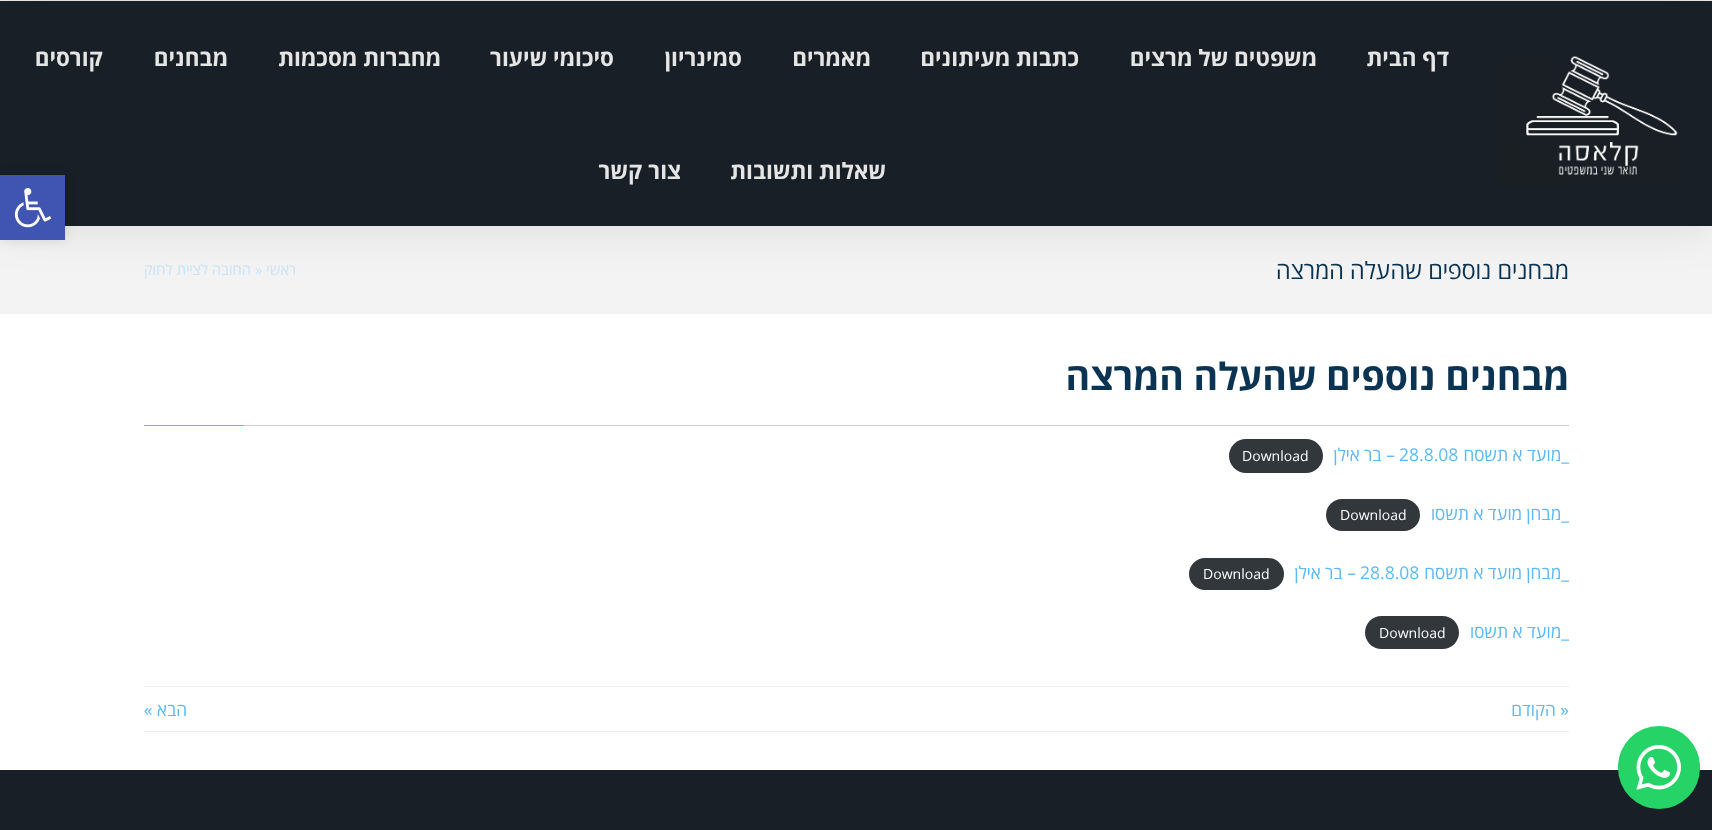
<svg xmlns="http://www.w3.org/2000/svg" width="1712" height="830">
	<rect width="100%" height="100%" fill="#FFFFFF" />
	<rect x="0" y="0" width="1712" height="1" fill="#EEEEEE" />
	<rect x="0" y="226" width="1712" height="88" fill="#F3F3F3" />
	<rect x="0" y="1" width="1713" height="225" fill="#000000" fill-opacity="0.1" filter="blur(24px)" />
	<rect x="0" y="1" width="1712" height="225" fill="#181F27" />
	<image x="1497" y="56" width="181" height="128" href="assets/img1.png" />
	<g font-family="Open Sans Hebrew" font-size="22.5" font-weight="700" direction="rtl" fill="#E5E5E5">
		<text x="1449" y="66">דף הבית</text>
		<text x="1317" y="66">משפטים של מרצים</text>
		<text x="1079" y="66">כתבות מעיתונים</text>
		<text x="871" y="66">מאמרים</text>
		<text x="742" y="66">סמינריון</text>
		<text x="614" y="66">סיכומי שיעור</text>
		<text x="441" y="66">מחברות מסכמות</text>
		<text x="228" y="66">מבחנים</text>
		<text x="103" y="66">קורסים</text>
		<text x="886" y="179">שאלות ותשובות</text>
		<text x="681" y="179">צור קשר</text>
	</g>
	<text x="1569" y="279" font-family="Open Sans Hebrew" font-size="23.75" direction="rtl" fill="#0B3352">מבחנים נוספים שהעלה המרצה</text>
	<text x="296" y="275" font-family="Open Sans Hebrew" font-size="15" direction="rtl" fill="#C8E4F7">ראשי</text>
	<text x="255" y="275" font-family="Open Sans Hebrew" font-size="15" fill="#C8E4F7">»</text>
	<text x="251" y="275" font-family="Open Sans Hebrew" font-size="15" direction="rtl" fill="#C8E4F7">החובה לציית לחוק</text>
	<text x="1569" y="390" font-family="Open Sans Hebrew" font-size="37.5" font-weight="700" direction="rtl" fill="#0B3352">מבחנים נוספים שהעלה המרצה</text>
	<rect x="244" y="425" width="1325" height="1" fill="#CCCCCC" />
	<rect x="144" y="425" width="100" height="1" fill="#5BB9F7" />
	<text x="1569" y="461" font-family="Open Sans Hebrew" font-size="17.5" direction="rtl" fill="#5BB9F7">_מועד א תשסח</text>
	<text x="1399" y="461" font-family="Open Sans Hebrew" font-size="17.5" fill="#5BB9F7">28.8.08</text>
	<text x="1395" y="461" font-family="Open Sans Hebrew" font-size="17.5" direction="rtl" fill="#5BB9F7">– בר אילן</text>
	<rect x="1229" y="439" width="94" height="34" rx="17" fill="#32373C" />
	<text x="1242" y="461" font-family="Open Sans Hebrew" font-size="14" fill="#FFFFFF">Download</text>
	<text x="1569" y="520" font-family="Open Sans Hebrew" font-size="17.5" direction="rtl" fill="#5BB9F7">_מבחן מועד א תשסו</text>
	<rect x="1326" y="499" width="94" height="32" rx="16" fill="#32373C" />
	<text x="1340" y="520" font-family="Open Sans Hebrew" font-size="14" fill="#FFFFFF">Download</text>
	<text x="1569" y="579" font-family="Open Sans Hebrew" font-size="17.5" direction="rtl" fill="#5BB9F7">_מבחן מועד א תשסח</text>
	<text x="1360" y="579" font-family="Open Sans Hebrew" font-size="17.5" fill="#5BB9F7">28.8.08</text>
	<text x="1356" y="579" font-family="Open Sans Hebrew" font-size="17.5" direction="rtl" fill="#5BB9F7">– בר אילן</text>
	<rect x="1189" y="558" width="95" height="32" rx="16" fill="#32373C" />
	<text x="1203" y="579" font-family="Open Sans Hebrew" font-size="14" fill="#FFFFFF">Download</text>
	<text x="1569" y="638" font-family="Open Sans Hebrew" font-size="17.5" direction="rtl" fill="#5BB9F7">_מועד א תשסו</text>
	<rect x="1365" y="616" width="94" height="33" rx="16.5" fill="#32373C" />
	<text x="1379" y="638" font-family="Open Sans Hebrew" font-size="14" fill="#FFFFFF">Download</text>
	<rect x="144" y="686" width="1425" height="1" fill="#ECECEC" />
	<rect x="144" y="731" width="1425" height="1" fill="#ECECEC" />
	<g font-family="Open Sans Hebrew" font-size="17.5" direction="rtl" fill="#5BB9F7">
		<text x="1569" y="716">« הקודם</text>
		<text x="187" y="716">הבא »</text>
	</g>
	<rect x="0" y="770" width="1712" height="60" fill="#181F27" />
	<rect x="0" y="175" width="65" height="65" fill="#000000" fill-opacity="0.1" filter="blur(6px)" />
	<rect x="0" y="175" width="65" height="65" fill="#4054B2" />
	<image x="14" y="188" width="38" height="40" href="assets/img2.png" />
	<rect x="1618" y="726" width="82" height="83" rx="41" fill="#25D366" />
	<image x="1636" y="745" width="45" height="45" href="assets/img3.png" />
</svg>
